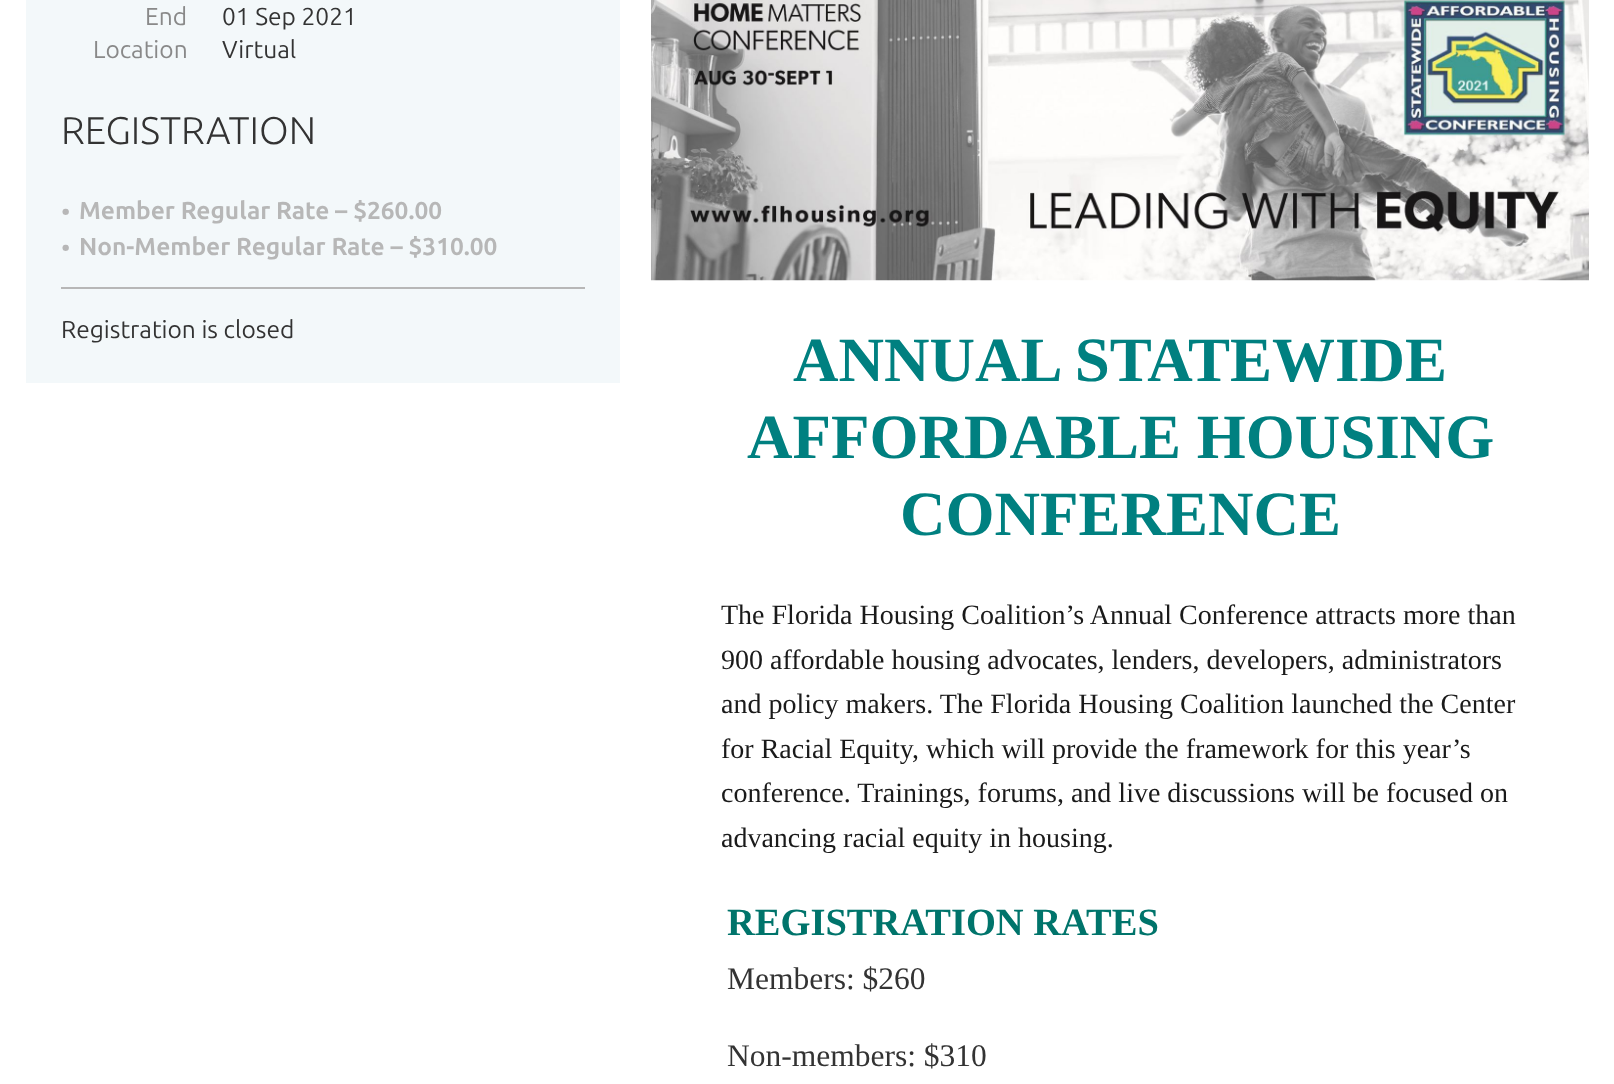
<svg xmlns="http://www.w3.org/2000/svg" width="1614" height="1084">
	<rect width="100%" height="100%" fill="#FFFFFF" />
	<rect x="26" y="0" width="594" height="383" fill="#F3F8FA" />
	<text x="145" y="25" font-family="Ubuntu" font-size="24.5" fill="#898989">End</text>
	<text x="222" y="25" font-family="Ubuntu" font-size="24.5" fill="#333333">01 Sep 2021</text>
	<text x="93" y="58" font-family="Ubuntu" font-size="24.5" fill="#898989">Location</text>
	<text x="222" y="58" font-family="Ubuntu" font-size="24.5" fill="#333333">Virtual</text>
	<text x="61" y="144" font-family="Ubuntu" font-size="38.5" font-weight="300" fill="#333333">REGISTRATION</text>
	<text x="61" y="221" font-family="Ubuntu" font-size="26" fill="#B7B7B7">•</text>
	<text x="79" y="219" font-family="Ubuntu" font-size="24.5" font-weight="700" fill="#B7B7B7">Member Regular Rate – $260.00</text>
	<text x="61" y="257" font-family="Ubuntu" font-size="26" fill="#B7B7B7">•</text>
	<text x="79" y="255" font-family="Ubuntu" font-size="24.5" font-weight="700" fill="#B7B7B7">Non-Member Regular Rate – $310.00</text>
	<rect x="61" y="287" width="524" height="2" fill="#B7B7B7" />
	<text x="61" y="338" font-family="Ubuntu" font-size="24.5" fill="#333333">Registration is closed</text>
	<image x="651" y="0" width="938" height="281" href="assets/img1.png" />
	<g font-family="Liberation Serif" font-size="63" font-weight="700" fill="#008080">
		<text x="793" y="381">ANNUAL STATEWIDE</text>
		<text x="747" y="458">AFFORDABLE HOUSING</text>
		<text x="900" y="535">CONFERENCE</text>
	</g>
	<g font-family="Liberation Serif" font-size="28" fill="#1A1A1A">
		<text x="721" y="624">The Florida Housing Coalition’s Annual Conference attracts more than</text>
		<text x="721" y="669">900 affordable housing advocates, lenders, developers, administrators</text>
		<text x="721" y="713">and policy makers. The Florida Housing Coalition launched the Center</text>
		<text x="721" y="758">for Racial Equity, which will provide the framework for this year’s</text>
		<text x="721" y="802">conference. Trainings, forums, and live discussions will be focused on</text>
		<text x="721" y="847">advancing racial equity in housing.</text>
	</g>
	<text x="727" y="935" font-family="Liberation Serif" font-size="38.5" font-weight="700" fill="#00746B">REGISTRATION RATES</text>
	<g font-family="Liberation Serif" font-size="31.5" fill="#333333">
		<text x="727" y="989">Members: $260</text>
		<text x="727" y="1066">Non-members: $310</text>
	</g>
</svg>
